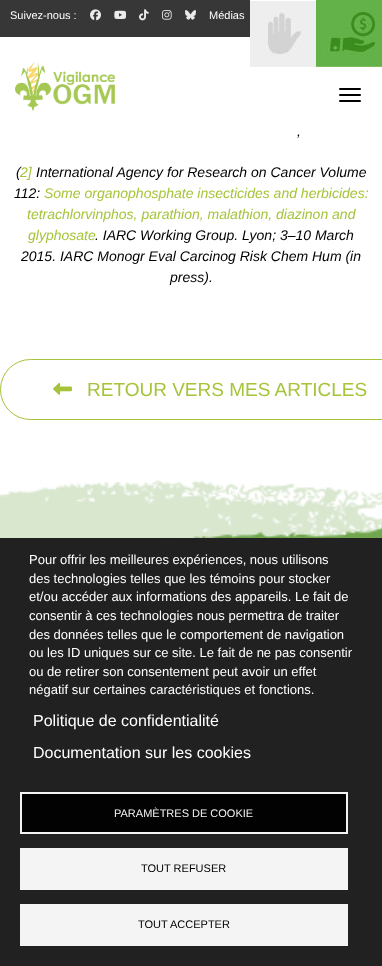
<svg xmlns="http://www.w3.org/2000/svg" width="382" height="966">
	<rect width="100%" height="100%" fill="#FFFFFF" />
	<rect x="0" y="0" width="250" height="37" fill="#373737" />
	<text x="10" y="19" font-family="Liberation Sans" font-size="11" fill="#FFFFFF">Suivez-nous :</text>
	<image x="90" y="9" width="11" height="12" href="assets/img1.png" />
	<image x="114" y="10" width="13" height="9" href="assets/img2.png" />
	<image x="139" y="9" width="10" height="12" href="assets/img3.png" />
	<image x="162" y="10" width="10" height="10" href="assets/img4.png" />
	<image x="185" y="10" width="11" height="10" href="assets/img5.png" />
	<text x="209" y="19" font-family="Liberation Sans" font-size="11" fill="#FFFFFF">Médias</text>
	<image x="250" y="1" width="66" height="66" href="assets/img6.png" />
	<rect x="316" y="66" width="66" height="1" fill="#7DBB5C" />
	<image x="316" y="0" width="66" height="66" href="assets/img7.png" />
	<image x="15" y="62" width="100" height="49" href="assets/img8.png" />
	<rect x="339" y="88" width="22" height="2" rx="1" fill="#000000" />
	<rect x="339" y="94" width="22" height="2" rx="1" fill="#000000" />
	<rect x="339" y="100" width="22" height="2" rx="1" fill="#000000" />
	<g font-family="Liberation Sans" font-size="14" font-style="italic" fill="#000000">
		<text x="297" y="136">,</text>
		<text x="16" y="177">(</text>
	</g>
	<text x="20" y="177" font-family="Liberation Sans" font-size="14" font-style="italic" fill="#A5C439">2]</text>
	<g font-family="Liberation Sans" font-size="14" font-style="italic" fill="#000000">
		<text x="36" y="177">International Agency for Research on Cancer Volume</text>
		<text x="14" y="198">112:</text>
	</g>
	<g font-family="Liberation Sans" font-size="14" font-style="italic" fill="#A5C439">
		<text x="44" y="198">Some organophosphate insecticides and herbicides:</text>
		<text x="27" y="219">tetrachlorvinphos, parathion, malathion, diazinon and</text>
		<text x="28" y="240">glyphosate</text>
	</g>
	<g font-family="Liberation Sans" font-size="14" font-style="italic" fill="#000000">
		<text x="95" y="240">. IARC Working Group. Lyon; 3–10 March</text>
		<text x="21" y="261">2015. IARC Monogr Eval Carcinog Risk Chem Hum (in</text>
		<text x="170" y="282">press).</text>
	</g>
	<rect x="0.5" y="359.5" width="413" height="60" rx="30" fill="none" stroke="#A5C439" />
	<image x="53" y="383" width="19" height="12" href="assets/img9.png" />
	<text x="87" y="396" font-family="Liberation Sans" font-size="19" fill="#A5C439">RETOUR VERS MES ARTICLES</text>
	<image x="0" y="480" width="382" height="58" href="assets/img10.png" />
	<rect x="0" y="538" width="382" height="428" fill="#212121" />
	<g font-family="Liberation Sans" font-size="13" fill="#FFFFFF">
		<text x="29" y="564">Pour offrir les meilleures expériences, nous utilisons</text>
		<text x="29" y="583">des technologies telles que les témoins pour stocker</text>
		<text x="29" y="601">et/ou accéder aux informations des appareils. Le fait de</text>
		<text x="29" y="620">consentir à ces technologies nous permettra de traiter</text>
		<text x="29" y="639">des données telles que le comportement de navigation</text>
		<text x="29" y="657">ou les ID uniques sur ce site. Le fait de ne pas consentir</text>
		<text x="29" y="676">ou de retirer son consentement peut avoir un effet</text>
		<text x="29" y="694">négatif sur certaines caractéristiques et fonctions.</text>
	</g>
	<g font-family="Liberation Sans" font-size="16" fill="#FFFFFF">
		<text x="33" y="726">Politique de confidentialité</text>
		<text x="33" y="758">Documentation sur les cookies</text>
	</g>
	<rect x="21" y="793" width="326" height="40" fill="#020202" stroke="#F4F4F4" stroke-width="2" />
	<text x="114" y="817" font-family="Liberation Sans" font-size="11" fill="#F4F4F4">PARAMÈTRES DE COOKIE</text>
	<rect x="20" y="848" width="328" height="42" fill="#F4F4F4" />
	<text x="141" y="872" font-family="Liberation Sans" font-size="11" fill="#000000">TOUT REFUSER</text>
	<rect x="20" y="904" width="328" height="42" fill="#F4F4F4" />
	<text x="138" y="928" font-family="Liberation Sans" font-size="11" fill="#000000">TOUT ACCEPTER</text>
</svg>
